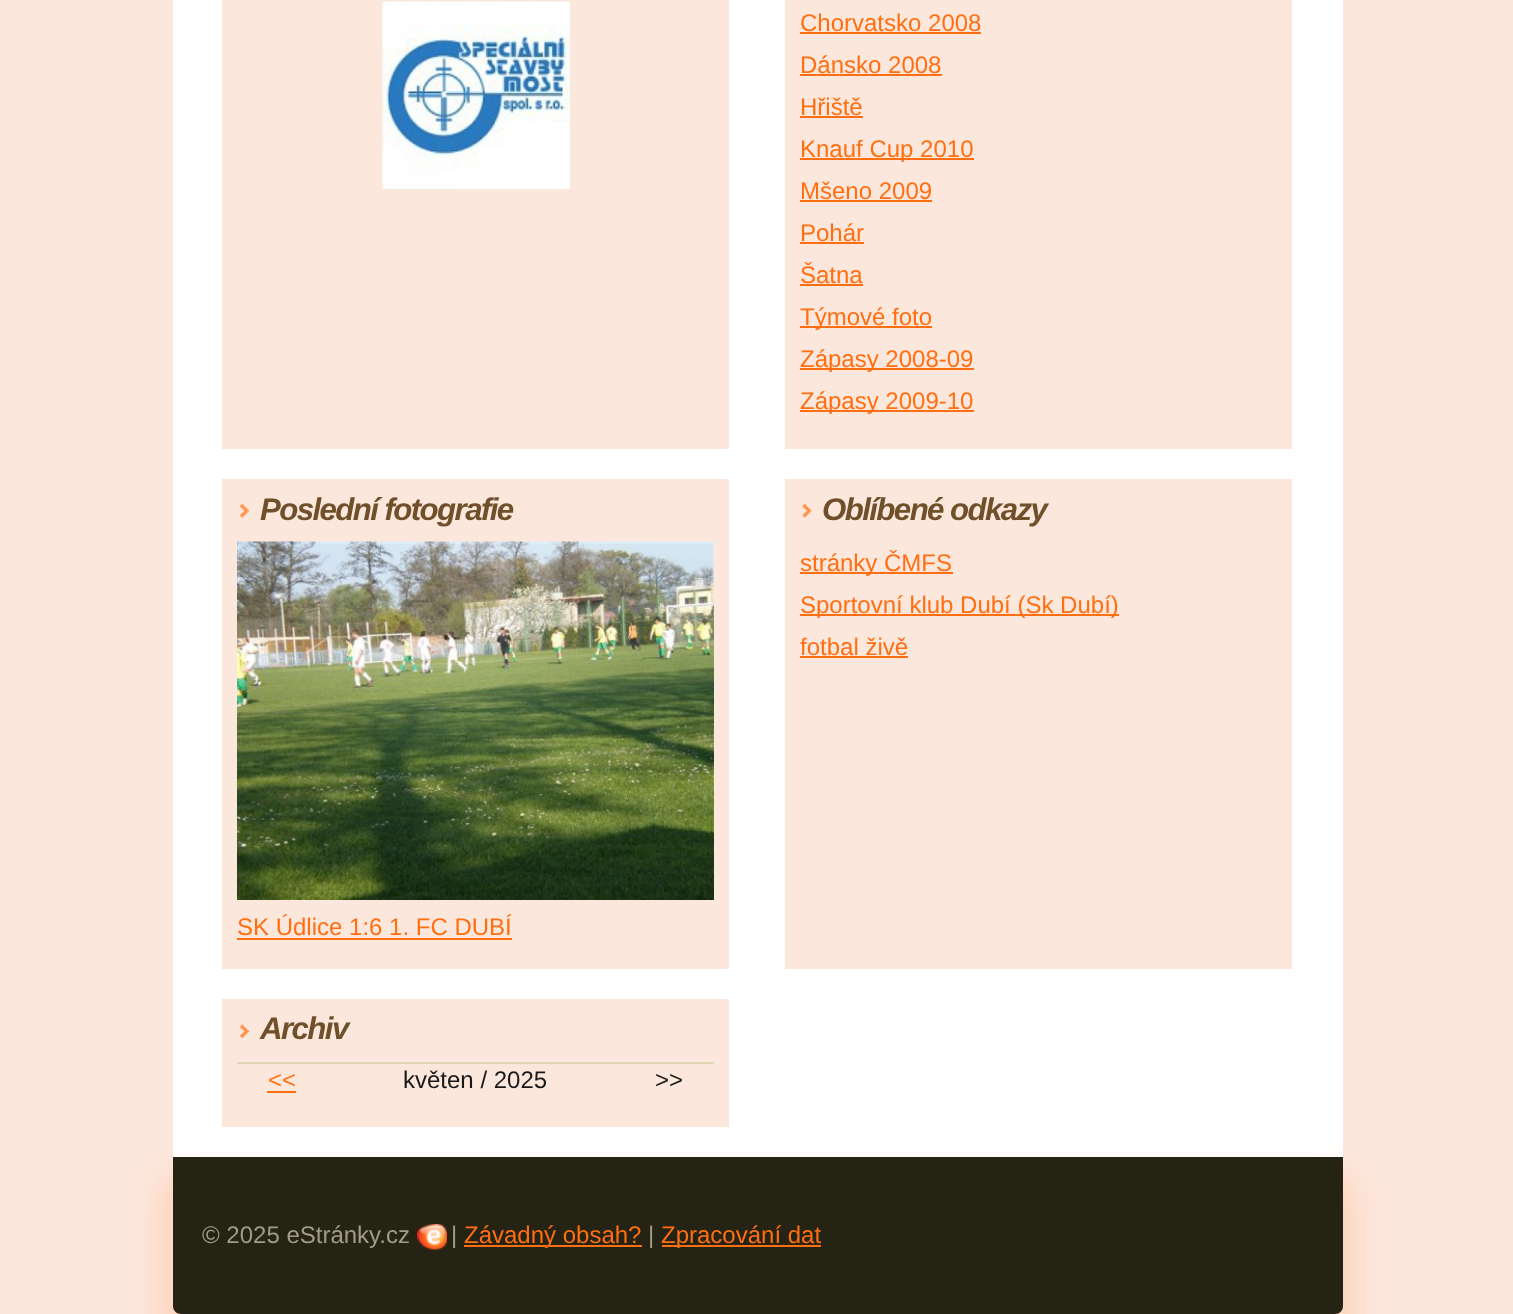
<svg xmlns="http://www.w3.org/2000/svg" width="1513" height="1314">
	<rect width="100%" height="100%" fill="#FCE7DC" />
	<rect x="173" y="0" width="1170" height="1157" fill="#FFFFFF" />
	<rect x="222" y="0" width="507" height="449" fill="#FCE7DC" />
	<image x="382" y="1" width="188" height="188" href="assets/img1.png" />
	<rect x="785" y="0" width="507" height="449" fill="#FCE7DC" />
	<text x="800" y="31" font-family="Liberation Sans" font-size="24" fill="#FF6F12">Chorvatsko 2008</text>
	<rect x="800" y="32" width="181" height="2" fill="#FF6F12" />
	<text x="800" y="73" font-family="Liberation Sans" font-size="24" fill="#FF6F12">Dánsko 2008</text>
	<rect x="800" y="74" width="142" height="2" fill="#FF6F12" />
	<text x="800" y="115" font-family="Liberation Sans" font-size="24" fill="#FF6F12">Hřiště</text>
	<rect x="800" y="116" width="63" height="2" fill="#FF6F12" />
	<rect x="800" y="158" width="174" height="2" fill="#FF6F12" />
	<g font-family="Liberation Sans" font-size="24" fill="#FF6F12">
		<text x="800" y="157">Knauf Cup 2010</text>
		<text x="800" y="199">Mšeno 2009</text>
	</g>
	<rect x="800" y="200" width="132" height="2" fill="#FF6F12" />
	<text x="800" y="241" font-family="Liberation Sans" font-size="24" fill="#FF6F12">Pohár</text>
	<rect x="800" y="242" width="64" height="2" fill="#FF6F12" />
	<text x="800" y="283" font-family="Liberation Sans" font-size="24" fill="#FF6F12">Šatna</text>
	<rect x="800" y="284" width="63" height="2" fill="#FF6F12" />
	<rect x="800" y="326" width="132" height="2" fill="#FF6F12" />
	<text x="800" y="325" font-family="Liberation Sans" font-size="24" fill="#FF6F12">Týmové foto</text>
	<rect x="800" y="368" width="174" height="2" fill="#FF6F12" />
	<text x="800" y="367" font-family="Liberation Sans" font-size="24" fill="#FF6F12">Zápasy 2008-09</text>
	<rect x="800" y="410" width="174" height="2" fill="#FF6F12" />
	<text x="800" y="409" font-family="Liberation Sans" font-size="24" fill="#FF6F12">Zápasy 2009-10</text>
	<rect x="222" y="479" width="507" height="490" fill="#FCE7DC" />
	<image x="240" y="504" width="9" height="14" href="assets/img2.png" />
	<text x="260" y="520" font-family="Liberation Sans" font-size="31.25" font-weight="700" font-style="italic" letter-spacing="-1.6" fill="#70502B">Poslední fotografie</text>
	<image x="237" y="541" width="477" height="359" href="assets/img3.png" />
	<text x="237" y="935" font-family="Liberation Sans" font-size="24" fill="#FF6F12">SK Údlice 1:6 1. FC DUBÍ</text>
	<rect x="237" y="938" width="275" height="2" fill="#FF6F12" />
	<rect x="785" y="479" width="507" height="490" fill="#FCE7DC" />
	<image x="802" y="504" width="10" height="14" href="assets/img4.png" />
	<text x="822" y="520" font-family="Liberation Sans" font-size="31.25" font-weight="700" font-style="italic" letter-spacing="-1.6" fill="#70502B">Oblíbené odkazy</text>
	<rect x="800" y="572" width="153" height="2" fill="#FF6F12" />
	<text x="800" y="571" font-family="Liberation Sans" font-size="24" fill="#FF6F12">stránky ČMFS</text>
	<rect x="800" y="614" width="319" height="2" fill="#FF6F12" />
	<g font-family="Liberation Sans" font-size="24" fill="#FF6F12">
		<text x="800" y="613">Sportovní klub Dubí (Sk Dubí)</text>
		<text x="800" y="655">fotbal živě</text>
	</g>
	<rect x="800" y="656" width="108" height="2" fill="#FF6F12" />
	<rect x="222" y="999" width="507" height="128" fill="#FCE7DC" />
	<image x="240" y="1024" width="9" height="14" href="assets/img5.png" />
	<text x="260" y="1039" font-family="Liberation Sans" font-size="31.25" font-weight="700" font-style="italic" letter-spacing="-1.6" fill="#70502B">Archiv</text>
	<text x="268" y="1088" font-family="Liberation Sans" font-size="24" fill="#FF6F12">&lt;&lt;</text>
	<rect x="267" y="1091" width="29" height="2" fill="#FF6F12" />
	<text x="403" y="1088" font-family="Liberation Sans" font-size="24" fill="#191919">květen / 2025</text>
	<rect x="237" y="1062" width="477" height="2" fill="#DED7B6" />
	<text x="655" y="1088" font-family="Liberation Sans" font-size="24" fill="#191919">&gt;&gt;</text>
	<rect x="162" y="1176" width="1191" height="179" rx="18" fill="#FFD2B9" filter="blur(15px)" />
	<path d="M173 1157H1343V1306C1343 1310.5 1339.5 1314 1335 1314H181C176.5 1314 173 1310.5 173 1306Z" fill="#252314" />
	<text x="202" y="1243" font-family="Liberation Sans" font-size="24" fill="#A09C87">© 2025 eStránky.cz</text>
	<image x="417" y="1224" width="30" height="26" href="assets/img6.png" />
	<text x="451" y="1243" font-family="Liberation Sans" font-size="24" fill="#A09C87">|</text>
	<rect x="464" y="1245" width="178" height="2" fill="#FF6F12" />
	<text x="464" y="1243" font-family="Liberation Sans" font-size="24" fill="#FF6F12">Závadný obsah?</text>
	<text x="648" y="1243" font-family="Liberation Sans" font-size="24" fill="#A09C87">|</text>
	<rect x="662" y="1245" width="159" height="2" fill="#FF6F12" />
	<text x="661" y="1243" font-family="Liberation Sans" font-size="24" fill="#FF6F12">Zpracování dat</text>
</svg>
